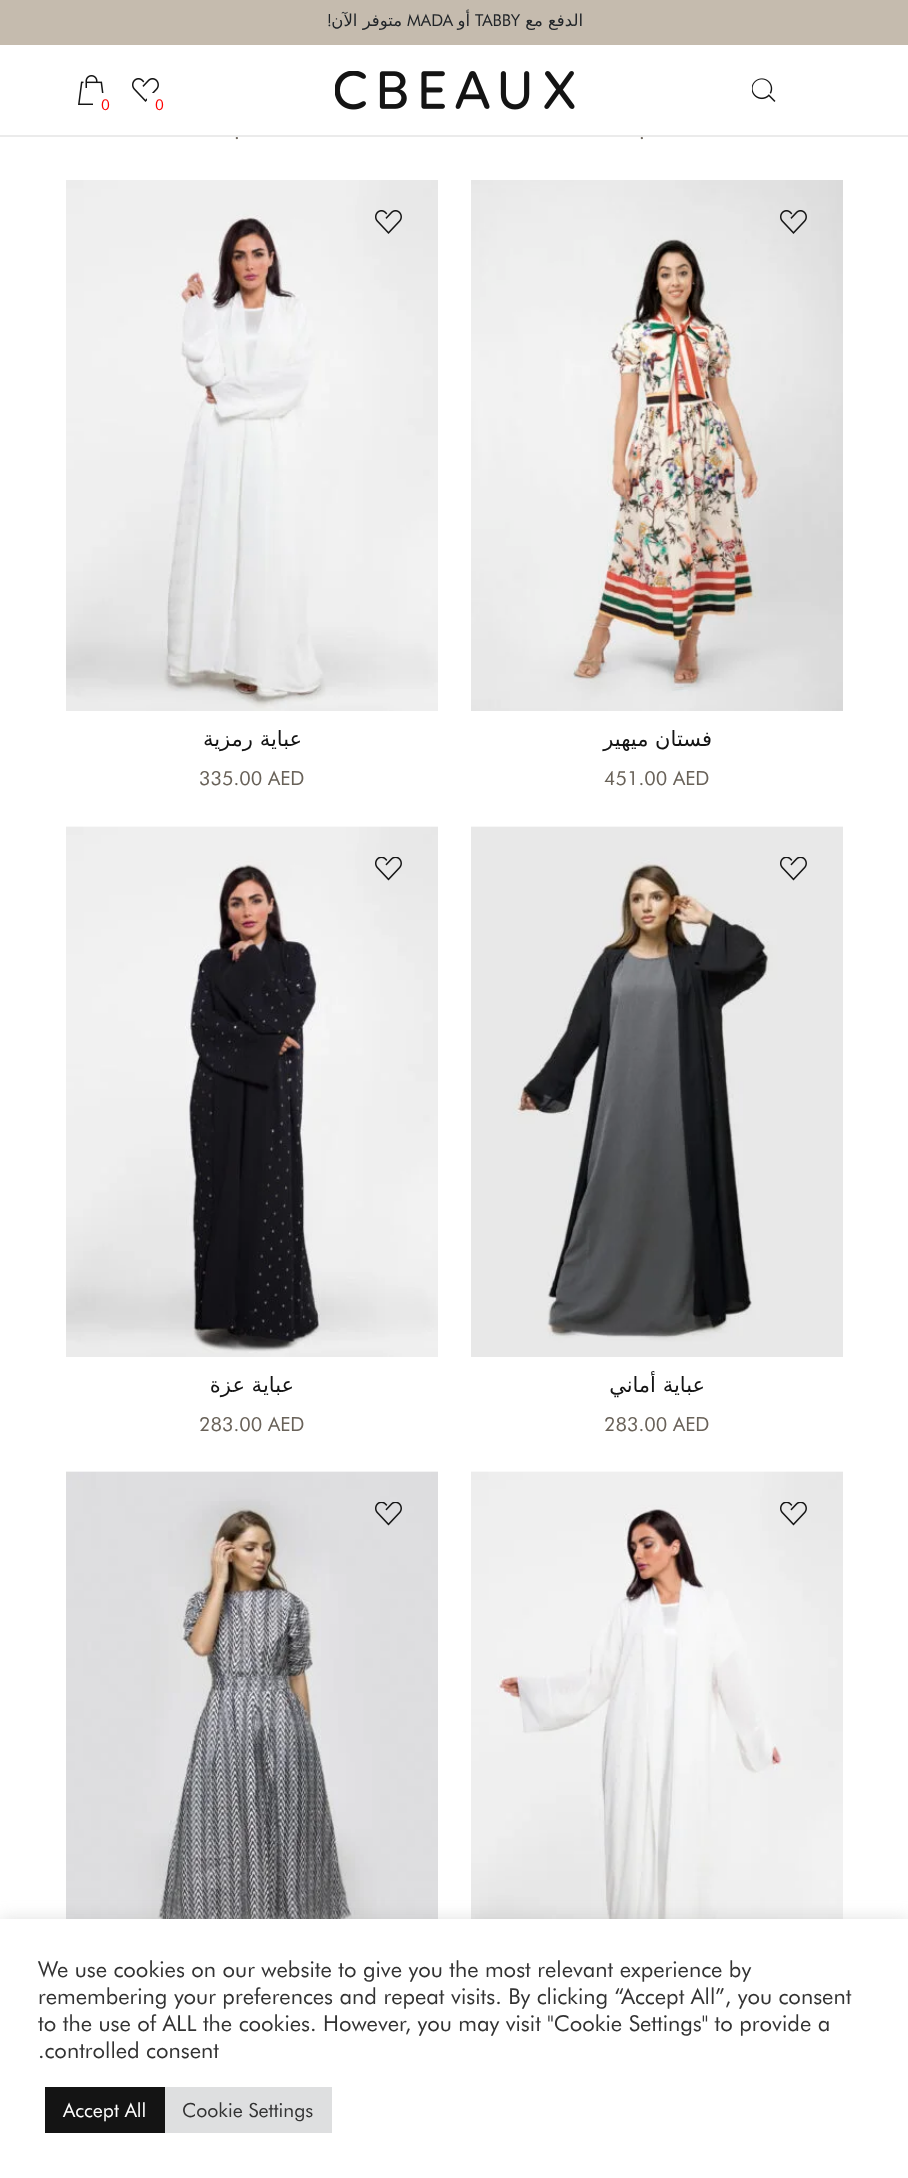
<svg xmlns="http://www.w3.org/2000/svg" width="908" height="2178">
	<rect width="100%" height="100%" fill="#FFFFFF" />
	<rect x="0" y="0" width="908" height="45" fill="#C5BBAE" />
	<text x="332" y="26" font-family="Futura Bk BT" font-size="16.5" direction="rtl" fill="#212529">!</text>
	<text x="402" y="26" font-family="DejaVu Sans" font-size="16.5" direction="rtl" fill="#212529">متوفر الآن</text>
	<text x="407" y="26" font-family="Futura Bk BT" font-size="16.5" fill="#212529">MADA</text>
	<text x="470" y="26" font-family="DejaVu Sans" font-size="16.5" direction="rtl" fill="#212529">أو</text>
	<text x="475" y="26" font-family="Futura Bk BT" font-size="16.5" fill="#212529">TABBY</text>
	<text x="583" y="26" font-family="DejaVu Sans" font-size="16.5" direction="rtl" fill="#212529">الدفع مع</text>
	<g font-family="Futura Bk BT" font-size="19.5" fill="#696259">
		<text x="234" y="139">.</text>
		<text x="639" y="139">.</text>
	</g>
	<rect x="0" y="135" width="908" height="2" fill="#EBEBEB" />
	<image x="335" y="71" width="240" height="39" href="assets/img1.png" />
	<image x="752" y="78" width="24" height="24" href="assets/img2.png" />
	<image x="78" y="75" width="26" height="30" href="assets/img3.png" />
	<rect x="93" y="93" width="11" height="12" fill="#FFFFFF" />
	<text x="101" y="110" font-family="Futura Bk BT" font-size="15" fill="#FF0000">0</text>
	<image x="132" y="78" width="27" height="24" href="assets/img4.png" />
	<rect x="147" y="93" width="7" height="8" fill="#FFFFFF" />
	<text x="155" y="110" font-family="Futura Bk BT" font-size="15" fill="#FF0000">0</text>
	<image x="66" y="180" width="372" height="531" href="assets/img6.png" />
	<image x="375" y="210" width="27" height="24" href="assets/img5.png" />
	<text x="302" y="746" font-family="DejaVu Sans" font-size="21" direction="rtl" fill="#141414">عباية رمزية</text>
	<text x="199" y="785" font-family="Futura Bk BT" font-size="19.5" fill="#696259">335.00 AED</text>
	<image x="471" y="180" width="372" height="531" href="assets/img8.png" />
	<image x="780" y="210" width="27" height="24" href="assets/img7.png" />
	<text x="712" y="746" font-family="DejaVu Sans" font-size="21" direction="rtl" fill="#141414">فستان ميهير</text>
	<text x="604" y="785" font-family="Futura Bk BT" font-size="19.5" fill="#696259">451.00 AED</text>
	<image x="66" y="826" width="372" height="531" href="assets/img10.png" />
	<image x="375" y="857" width="27" height="24" href="assets/img9.png" />
	<text x="294" y="1392" font-family="DejaVu Sans" font-size="21" direction="rtl" fill="#141414">عباية عزة</text>
	<text x="199" y="1431" font-family="Futura Bk BT" font-size="19.5" fill="#696259">283.00 AED</text>
	<image x="471" y="826" width="372" height="531" href="assets/img12.png" />
	<image x="780" y="857" width="27" height="24" href="assets/img11.png" />
	<text x="705" y="1392" font-family="DejaVu Sans" font-size="21" direction="rtl" fill="#141414">عباية أماني</text>
	<text x="604" y="1431" font-family="Futura Bk BT" font-size="19.5" fill="#696259">283.00 AED</text>
	<image x="66" y="1471" width="372" height="448" href="assets/img13.png" />
	<image x="375" y="1502" width="27" height="24" href="assets/img14.png" />
	<image x="471" y="1471" width="372" height="448" href="assets/img15.png" />
	<image x="780" y="1502" width="27" height="24" href="assets/img9.png" />
	<rect x="0" y="1917" width="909" height="260" fill="#ACABAB" fill-opacity="0.3" filter="blur(7.5px)" />
	<rect x="0" y="1919" width="908" height="259" fill="#FFFFFF" />
	<g font-family="Futura Bk BT" font-size="22" fill="#333333">
		<text x="38" y="1977">We use cookies on our website to give you the most relevant experience by</text>
		<text x="38" y="2004">remembering your preferences and repeat visits. By clicking “Accept All”, you consent</text>
		<text x="38" y="2031">to the use of ALL the cookies. However, you may visit "Cookie Settings" to provide a</text>
		<text x="38" y="2058">.controlled consent</text>
	</g>
	<rect x="45" y="2087" width="120" height="46" fill="#141414" />
	<text x="63" y="2117" font-family="Futura Bk BT" font-size="19.5" fill="#FFFFFF">Accept All</text>
	<rect x="165" y="2087" width="167" height="46" fill="#DEDFE0" />
	<text x="182" y="2117" font-family="Futura Bk BT" font-size="19.5" fill="#333333">Cookie Settings</text>
</svg>
